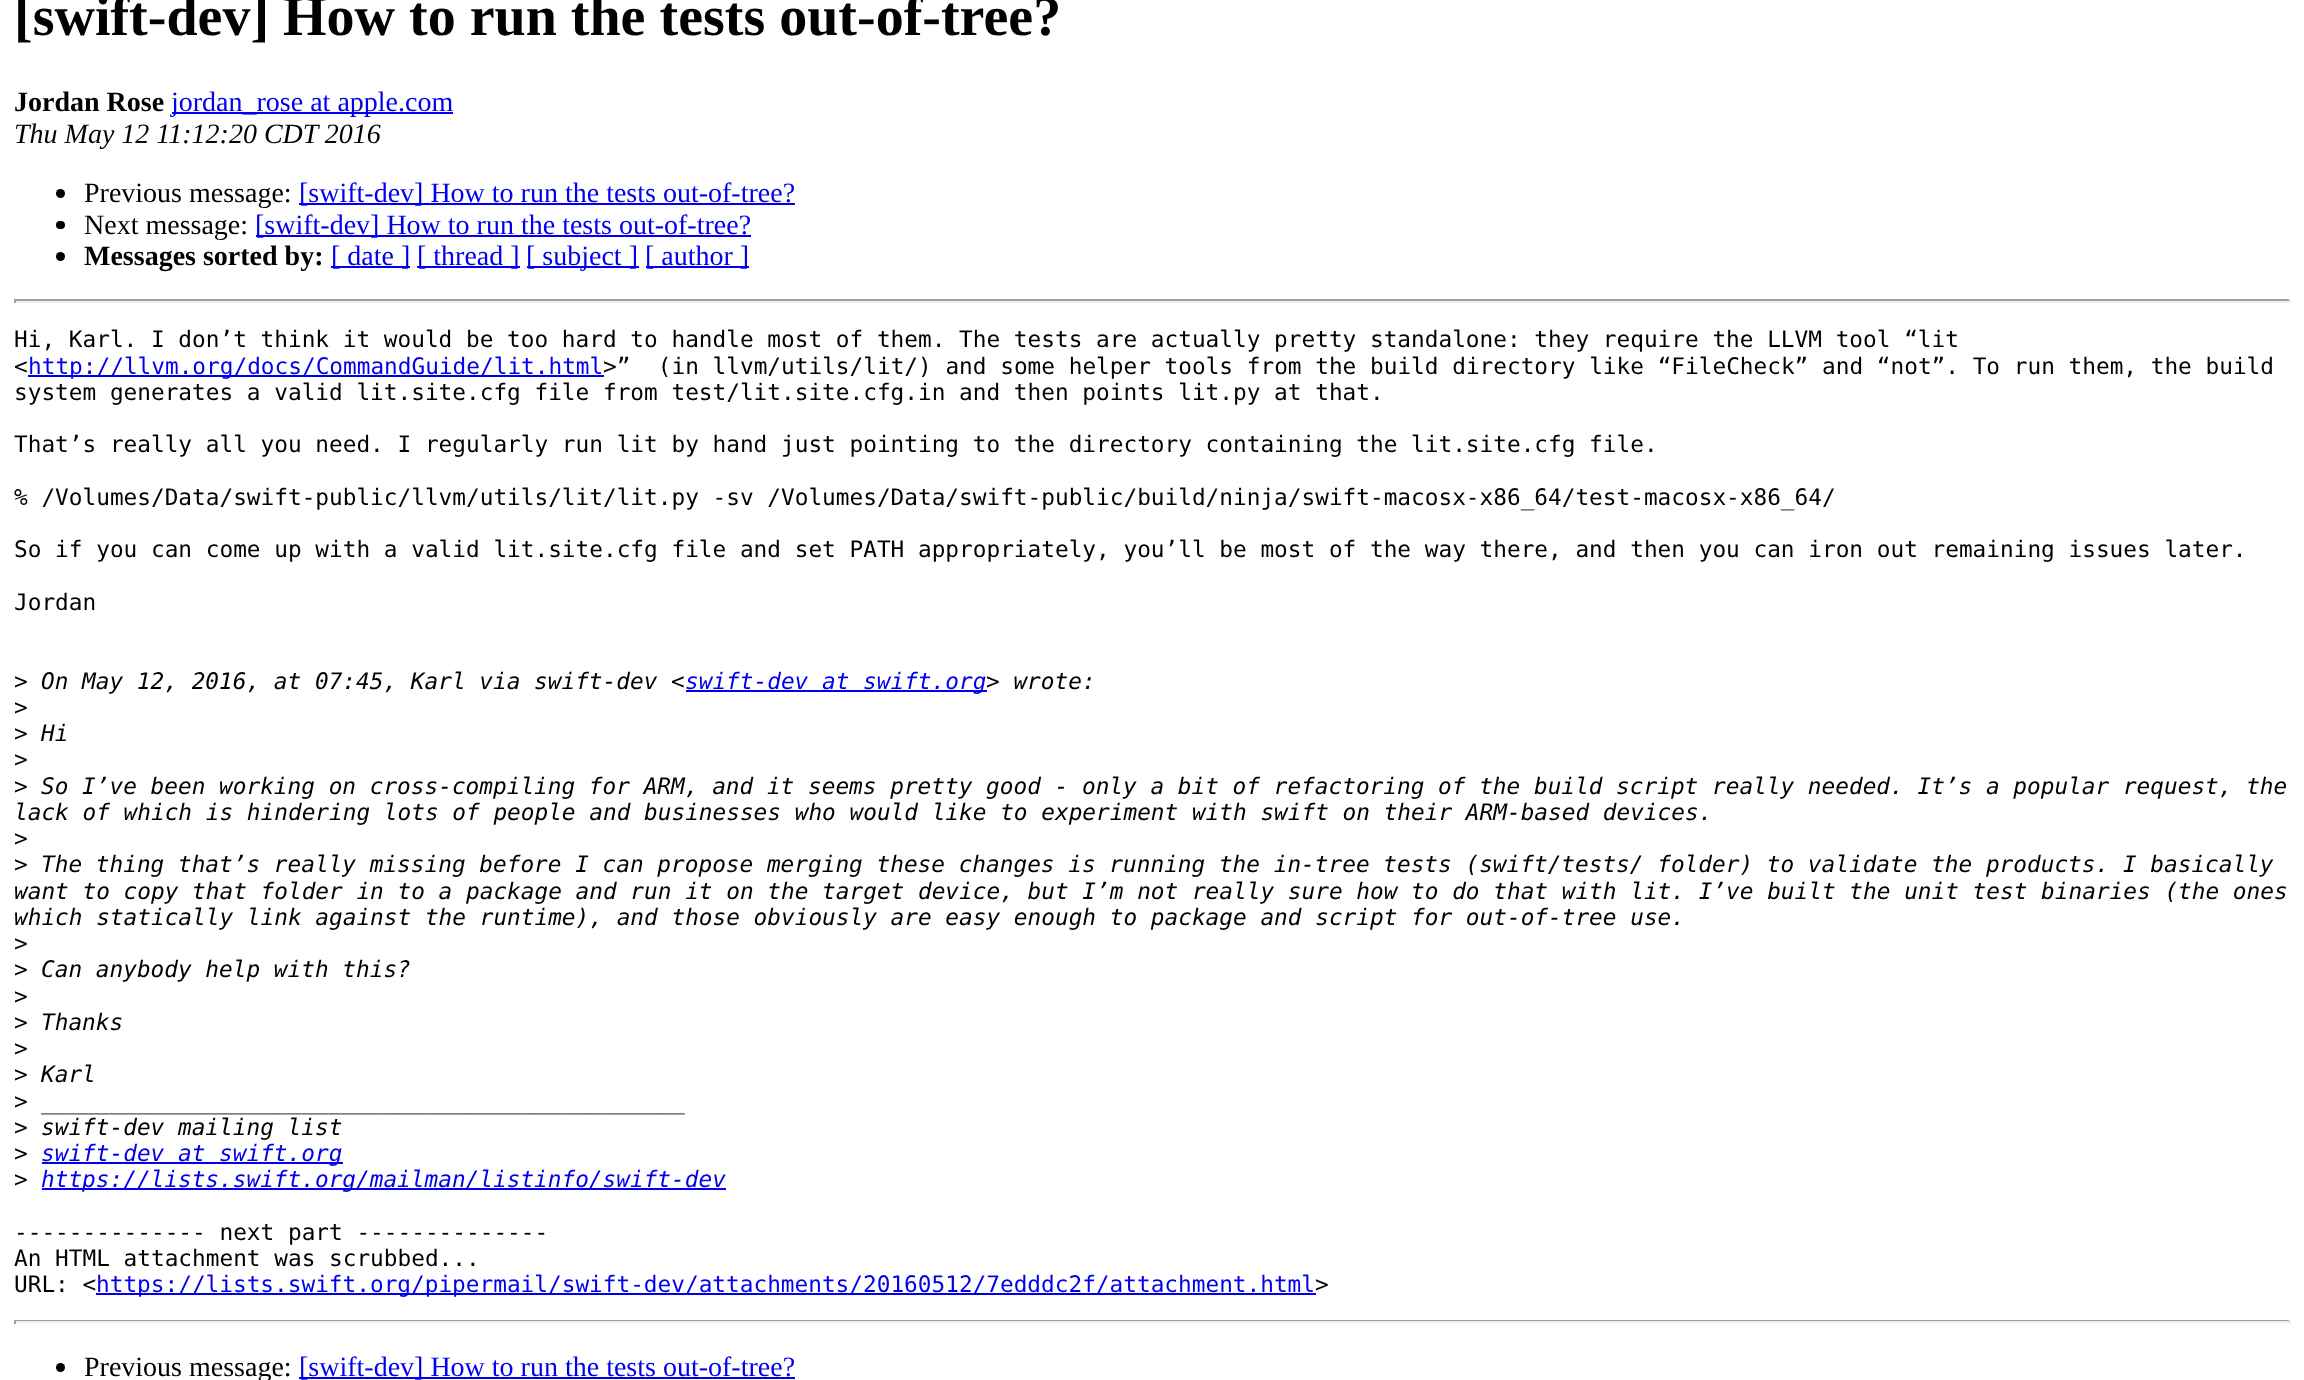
<svg xmlns="http://www.w3.org/2000/svg" width="2304" height="1380">
	<rect width="100%" height="100%" fill="#FFFFFF" />
	<text x="14" y="35" font-family="Liberation Serif" font-size="56" font-weight="700" fill="#000000">[swift-dev] How to run the tests out-of-tree?</text>
	<text x="14" y="111" font-family="Liberation Serif" font-size="28" font-weight="700" fill="#000000">Jordan Rose</text>
	<rect x="172" y="112" width="281" height="2" fill="#0000EE" />
	<text x="171" y="111" font-family="Liberation Serif" font-size="28" fill="#0000EE">jordan_rose at apple.com</text>
	<text x="14" y="143" font-family="Liberation Serif" font-size="28" font-style="italic" fill="#000000">Thu May 12 11:12:20 CDT 2016</text>
	<circle cx="60.5" cy="193.5" r="4.5" fill="#000000" />
	<text x="84" y="202" font-family="Liberation Serif" font-size="28" fill="#000000">Previous message:</text>
	<rect x="299" y="203" width="496" height="2" fill="#0000EE" />
	<text x="299" y="202" font-family="Liberation Serif" font-size="28" fill="#0000EE">[swift-dev] How to run the tests out-of-tree?</text>
	<rect x="56" y="221" width="9" height="8" rx="4" fill="#000000" />
	<text x="84" y="234" font-family="Liberation Serif" font-size="28" fill="#000000">Next message:</text>
	<rect x="256" y="235" width="495" height="2" fill="#0000EE" />
	<text x="255" y="234" font-family="Liberation Serif" font-size="28" fill="#0000EE">[swift-dev] How to run the tests out-of-tree?</text>
	<circle cx="60.5" cy="256.5" r="4.5" fill="#000000" />
	<text x="84" y="265" font-family="Liberation Serif" font-size="28" font-weight="700" fill="#000000">Messages sorted by:</text>
	<rect x="331" y="266" width="79" height="2" fill="#0000EE" />
	<text x="331" y="265" font-family="Liberation Serif" font-size="28" fill="#0000EE">[ date ]</text>
	<rect x="417" y="266" width="103" height="2" fill="#0000EE" />
	<text x="417" y="265" font-family="Liberation Serif" font-size="28" fill="#0000EE">[ thread ]</text>
	<rect x="527" y="266" width="112" height="2" fill="#0000EE" />
	<text x="526" y="265" font-family="Liberation Serif" font-size="28" fill="#0000EE">[ subject ]</text>
	<rect x="646" y="266" width="103" height="2" fill="#0000EE" />
	<text x="645" y="265" font-family="Liberation Serif" font-size="28" fill="#0000EE">[ author ]</text>
	<rect x="14" y="299" width="2277" height="2" fill="#9F9F9F" />
	<rect x="2289" y="299" width="2" height="4" fill="#EEEEEE" />
	<rect x="14" y="301" width="2277" height="2" fill="#EEEEEE" />
	<rect x="14" y="299" width="2" height="4" fill="#9F9F9F" />
	<g font-family="DejaVu Sans Mono" font-size="22.75" fill="#000000">
		<text x="14" y="347">Hi, Karl. I don’t think it would be too hard to handle most of them. The tests are actually pretty standalone: they require the LLVM tool “lit</text>
		<text x="14" y="374">&lt;</text>
	</g>
	<rect x="28" y="375" width="576" height="2" fill="#0000EE" />
	<text x="28" y="374" font-family="DejaVu Sans Mono" font-size="22.75" fill="#0000EE">http://llvm.org/docs/CommandGuide/lit.html</text>
	<g font-family="DejaVu Sans Mono" font-size="22.75" fill="#000000">
		<text x="603" y="374" xml:space="preserve">&gt;”  (in llvm/utils/lit/) and some helper tools from the build directory like “FileCheck” and “not”. To run them, the build</text>
		<text x="14" y="400">system generates a valid lit.site.cfg file from test/lit.site.cfg.in and then points lit.py at that.</text>
		<text x="14" y="452">That’s really all you need. I regularly run lit by hand just pointing to the directory containing the lit.site.cfg file.</text>
		<text x="14" y="505">% /Volumes/Data/swift-public/llvm/utils/lit/lit.py -sv /Volumes/Data/swift-public/build/ninja/swift-macosx-x86_64/test-macosx-x86_64/</text>
		<text x="14" y="557">So if you can come up with a valid lit.site.cfg file and set PATH appropriately, you’ll be most of the way there, and then you can iron out remaining issues later.</text>
		<text x="14" y="610">Jordan</text>
		<text x="14" y="689">&gt;</text>
	</g>
	<text x="41" y="689" font-family="DejaVu Sans Mono" font-size="22.75" font-style="italic" fill="#000000">On May 12, 2016, at 07:45, Karl via swift-dev &lt;</text>
	<rect x="686" y="690" width="301" height="2" fill="#0000EE" />
	<text x="685" y="689" font-family="DejaVu Sans Mono" font-size="22.75" font-style="italic" fill="#0000EE">swift-dev at swift.org</text>
	<text x="986" y="689" font-family="DejaVu Sans Mono" font-size="22.75" font-style="italic" fill="#000000">&gt; wrote:</text>
	<g font-family="DejaVu Sans Mono" font-size="22.75" fill="#000000">
		<text x="14" y="715">&gt;</text>
		<text x="14" y="741">&gt;</text>
	</g>
	<text x="41" y="741" font-family="DejaVu Sans Mono" font-size="22.75" font-style="italic" fill="#000000">Hi</text>
	<g font-family="DejaVu Sans Mono" font-size="22.75" fill="#000000">
		<text x="14" y="767">&gt;</text>
		<text x="14" y="794">&gt;</text>
	</g>
	<g font-family="DejaVu Sans Mono" font-size="22.75" font-style="italic" fill="#000000">
		<text x="41" y="794">So I’ve been working on cross-compiling for ARM, and it seems pretty good - only a bit of refactoring of the build script really needed. It’s a popular request, the</text>
		<text x="14" y="820">lack of which is hindering lots of people and businesses who would like to experiment with swift on their ARM-based devices.</text>
	</g>
	<g font-family="DejaVu Sans Mono" font-size="22.75" fill="#000000">
		<text x="14" y="846">&gt;</text>
		<text x="14" y="872">&gt;</text>
	</g>
	<g font-family="DejaVu Sans Mono" font-size="22.75" font-style="italic" fill="#000000">
		<text x="41" y="872">The thing that’s really missing before I can propose merging these changes is running the in-tree tests (swift/tests/ folder) to validate the products. I basically</text>
		<text x="14" y="899">want to copy that folder in to a package and run it on the target device, but I’m not really sure how to do that with lit. I’ve built the unit test binaries (the ones</text>
		<text x="14" y="925">which statically link against the runtime), and those obviously are easy enough to package and script for out-of-tree use.</text>
	</g>
	<g font-family="DejaVu Sans Mono" font-size="22.75" fill="#000000">
		<text x="14" y="951">&gt;</text>
		<text x="14" y="977">&gt;</text>
	</g>
	<text x="41" y="977" font-family="DejaVu Sans Mono" font-size="22.75" font-style="italic" fill="#000000">Can anybody help with this?</text>
	<g font-family="DejaVu Sans Mono" font-size="22.75" fill="#000000">
		<text x="14" y="1004">&gt;</text>
		<text x="14" y="1030">&gt;</text>
	</g>
	<text x="41" y="1030" font-family="DejaVu Sans Mono" font-size="22.75" font-style="italic" fill="#000000">Thanks</text>
	<g font-family="DejaVu Sans Mono" font-size="22.75" fill="#000000">
		<text x="14" y="1056">&gt;</text>
		<text x="14" y="1082">&gt;</text>
	</g>
	<text x="41" y="1082" font-family="DejaVu Sans Mono" font-size="22.75" font-style="italic" fill="#000000">Karl</text>
	<text x="14" y="1109" font-family="DejaVu Sans Mono" font-size="22.75" fill="#000000">&gt;</text>
	<text x="41" y="1109" font-family="DejaVu Sans Mono" font-size="22.75" font-style="italic" fill="#000000">_______________________________________________</text>
	<text x="14" y="1135" font-family="DejaVu Sans Mono" font-size="22.75" fill="#000000">&gt;</text>
	<text x="41" y="1135" font-family="DejaVu Sans Mono" font-size="22.75" font-style="italic" fill="#000000">swift-dev mailing list</text>
	<text x="14" y="1161" font-family="DejaVu Sans Mono" font-size="22.75" fill="#000000">&gt;</text>
	<rect x="42" y="1162" width="301" height="2" fill="#0000EE" />
	<text x="41" y="1161" font-family="DejaVu Sans Mono" font-size="22.75" font-style="italic" fill="#0000EE">swift-dev at swift.org</text>
	<text x="14" y="1187" font-family="DejaVu Sans Mono" font-size="22.75" fill="#000000">&gt;</text>
	<rect x="42" y="1188" width="684" height="2" fill="#0000EE" />
	<text x="41" y="1187" font-family="DejaVu Sans Mono" font-size="22.75" font-style="italic" fill="#0000EE">https://lists.swift.org/mailman/listinfo/swift-dev</text>
	<g font-family="DejaVu Sans Mono" font-size="22.75" fill="#000000">
		<text x="14" y="1240">-------------- next part --------------</text>
		<text x="14" y="1266">An HTML attachment was scrubbed...</text>
		<text x="14" y="1292">URL: &lt;</text>
	</g>
	<rect x="96" y="1293" width="1220" height="2" fill="#0000EE" />
	<text x="96" y="1292" font-family="DejaVu Sans Mono" font-size="22.75" fill="#0000EE">https://lists.swift.org/pipermail/swift-dev/attachments/20160512/7edddc2f/attachment.html</text>
	<text x="1315" y="1292" font-family="DejaVu Sans Mono" font-size="22.75" fill="#000000">&gt;</text>
	<rect x="14" y="1320" width="2277" height="1" fill="#9F9F9F" />
	<rect x="2289" y="1320" width="2" height="4" fill="#EEEEEE" />
	<rect x="14" y="1321" width="2277" height="2" fill="#EEEEEE" />
	<rect x="14" y="1320" width="2" height="4" fill="#9F9F9F" />
	<circle cx="60.5" cy="1367.5" r="4.5" fill="#000000" />
	<text x="84" y="1376" font-family="Liberation Serif" font-size="28" fill="#000000">Previous message:</text>
	<rect x="299" y="1377" width="496" height="2" fill="#0000EE" />
	<text x="299" y="1376" font-family="Liberation Serif" font-size="28" fill="#0000EE">[swift-dev] How to run the tests out-of-tree?</text>
</svg>
